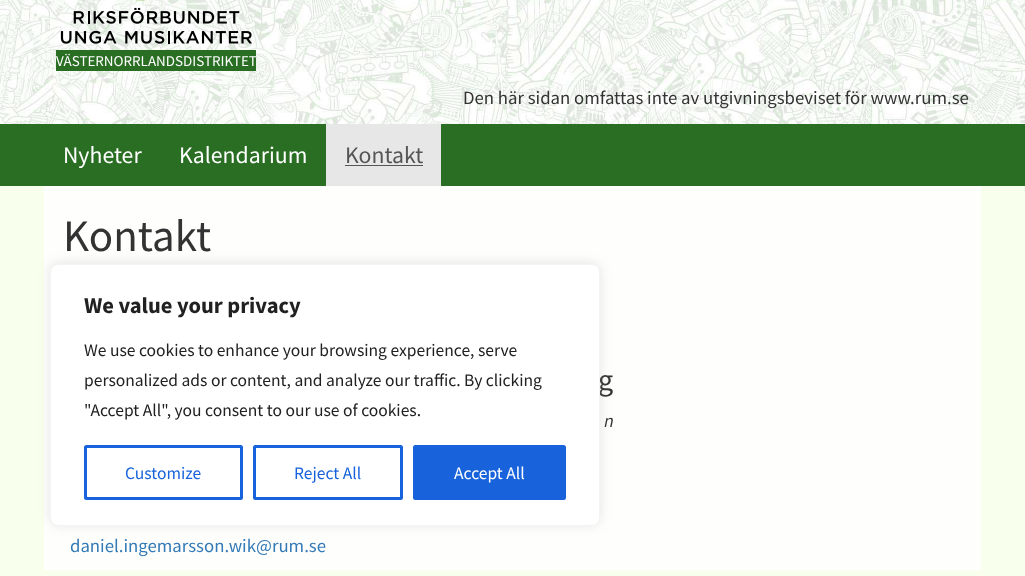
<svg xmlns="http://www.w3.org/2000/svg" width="1025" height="576">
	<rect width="100%" height="100%" fill="#F9FFED" />
	<image x="0" y="0" width="1025" height="124" href="assets/img1.png" />
	<image x="60" y="0" width="192" height="44" href="assets/img2.png" />
	<rect x="56" y="50" width="200" height="21" fill="#296E23" />
	<text x="56" y="66" font-family="Source Sans Pro" font-size="15" fill="#FFFFFF">VÄSTERNORRLANDSDISTRIKTET</text>
	<text x="463" y="104" font-family="Source Sans Pro" font-size="18.75" fill="#333333">Den här sidan omfattas inte av utgivningsbeviset för www.rum.se</text>
	<rect x="0" y="124" width="1025" height="62" fill="#296E23" />
	<g font-family="Source Sans Pro" font-size="23.75" fill="#FFFFFF">
		<text x="63" y="163">Nyheter</text>
		<text x="179" y="163">Kalendarium</text>
	</g>
	<rect x="326" y="124" width="115" height="62" fill="#E7E7E7" />
	<text x="345" y="163" font-family="Source Sans Pro" font-size="23.75" fill="#555555">Kontakt</text>
	<rect x="345" y="165" width="78" height="1" fill="#555555" />
	<rect x="44" y="186" width="937" height="384" fill="#FEFFFD" />
	<text x="63" y="251" font-family="Source Sans Pro" font-size="45" fill="#333333">Kontakt</text>
	<text x="598" y="390" font-family="Source Sans Pro" font-size="30" fill="#333333">g</text>
	<text x="604" y="427" font-family="Source Sans Pro" font-size="18.75" font-style="italic" fill="#333333">n</text>
	<text x="70" y="552" font-family="Source Sans Pro" font-size="18.75" fill="#337AB7">daniel.ingemarsson.wik@rum.se</text>
	<rect x="50" y="263" width="550" height="262" rx="8" fill="#ACABAB" fill-opacity="0.3" filter="blur(6px)" />
	<rect x="50.5" y="264.5" width="549" height="261" rx="7.5" fill="#FFFFFF" stroke="#F4F4F4" />
	<text x="84" y="313" font-family="Source Sans Pro" font-size="22.5" font-weight="700" fill="#212121">We value your privacy</text>
	<g font-family="Source Sans Pro" font-size="17.5" fill="#212121">
		<text x="84" y="356">We use cookies to enhance your browsing experience, serve</text>
		<text x="84" y="386">personalized ads or content, and analyze our traffic. By clicking</text>
		<text x="84" y="416">"Accept All", you consent to our use of cookies.</text>
	</g>
	<rect x="85.5" y="446.5" width="156" height="52" rx="1" fill="none" stroke="#1863DC" stroke-width="3" />
	<text x="125" y="479" font-family="Source Sans Pro" font-size="17.5" fill="#1863DC">Customize</text>
	<rect x="254.5" y="446.5" width="147" height="52" rx="1" fill="none" stroke="#1863DC" stroke-width="3" />
	<text x="294" y="479" font-family="Source Sans Pro" font-size="17.5" fill="#1863DC">Reject All</text>
	<rect x="414.5" y="446.5" width="150" height="52" rx="1" fill="#1863DC" stroke="#1863DC" stroke-width="3" />
	<text x="454" y="479" font-family="Source Sans Pro" font-size="17.5" fill="#FFFFFF">Accept All</text>
</svg>
